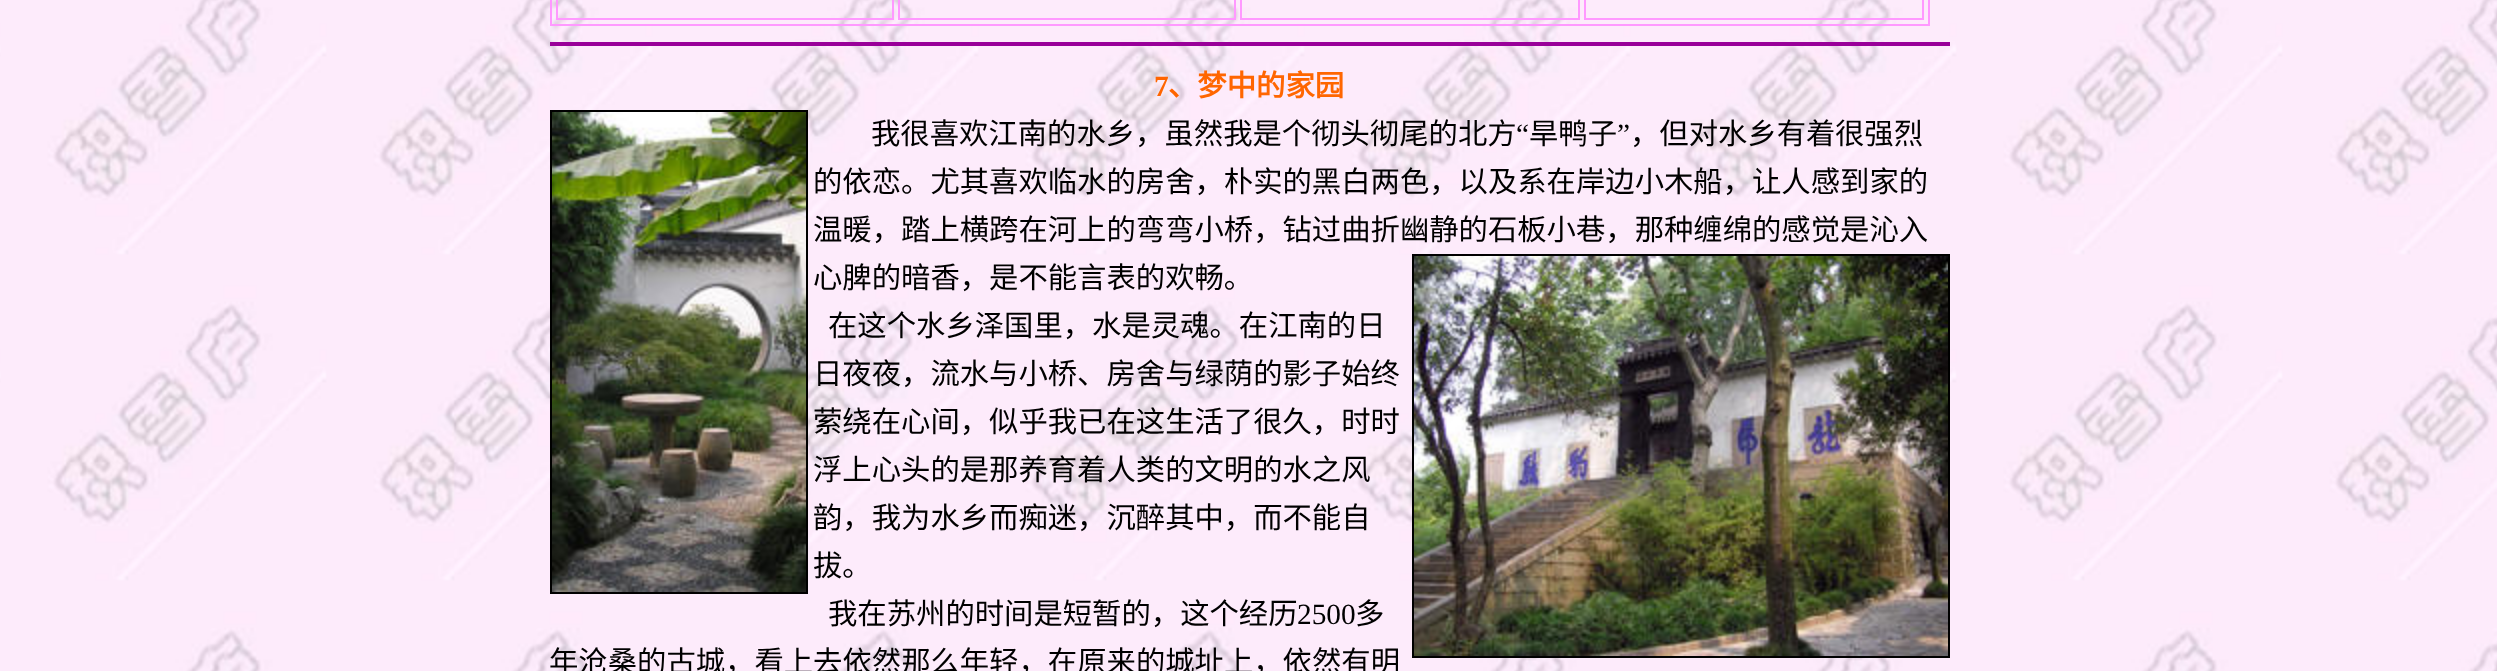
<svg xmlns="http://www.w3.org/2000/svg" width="2497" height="671">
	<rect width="100%" height="100%" fill="#FFFFFF" />
	<image x="0" y="0" width="2497" height="671" href="assets/img1.png" />
	<rect x="551" y="-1" width="1378" height="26" fill="none" stroke="#FF99FF" stroke-width="2" />
	<rect x="557" y="-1" width="336" height="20" fill="none" stroke="#FF99FF" stroke-width="2" />
	<rect x="899" y="-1" width="336" height="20" fill="none" stroke="#FF99FF" stroke-width="2" />
	<rect x="1241" y="-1" width="338" height="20" fill="none" stroke="#FF99FF" stroke-width="2" />
	<rect x="1585" y="-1" width="338" height="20" fill="none" stroke="#FF99FF" stroke-width="2" />
	<rect x="550" y="42" width="1400" height="4" fill="#990099" />
	<text x="1154" y="96" font-family="Liberation Serif" font-size="29.35" font-weight="700" fill="#FF6600">7</text>
	<text x="1168" y="96" font-family="Noto Sans CJK SC" font-size="29.35" font-weight="700" fill="#FF6600">、梦中的家园</text>
	<rect x="551" y="111" width="256" height="482" fill="none" stroke="#000000" stroke-width="2" />
	<image x="552" y="112" width="254" height="480" href="assets/img2.png" />
	<text x="871" y="144" font-family="Noto Sans CJK SC" font-size="29.35" fill="#000000">我很喜欢江南的水乡，虽然我是个彻头彻尾的北方</text>
	<text x="1516" y="144" font-family="Liberation Serif" font-size="29.35" fill="#000000">“</text>
	<text x="1529" y="144" font-family="Noto Sans CJK SC" font-size="29.35" fill="#000000">旱鸭子</text>
	<text x="1617" y="144" font-family="Liberation Serif" font-size="29.35" fill="#000000">”</text>
	<g font-family="Noto Sans CJK SC" font-size="29.35" fill="#000000">
		<text x="1630" y="144">，但对水乡有着</text>
		<text x="1835" y="144">很强烈</text>
		<text x="813" y="192">的依恋。尤其喜欢临水的房舍，朴实的黑白两色，以及系在岸边小木船，让人感到家的</text>
		<text x="813" y="240">温暖，踏上横跨在河上的弯弯小桥，钻过曲折幽静的石板小巷，那种缠绵的感觉是沁入</text>
		<text x="813" y="288">心脾的暗香，是不能言表的欢畅。</text>
	</g>
	<rect x="1413" y="255" width="536" height="402" fill="none" stroke="#000000" stroke-width="2" />
	<image x="1414" y="256" width="534" height="400" href="assets/img3.png" />
	<g font-family="Noto Sans CJK SC" font-size="29.35" fill="#000000">
		<text x="828" y="336">在这个水乡泽国里，水是灵魂。在江南的日</text>
		<text x="813" y="384">日夜夜，流水与小桥、房舍与绿荫的影子始终</text>
		<text x="813" y="432">萦绕在心间，似乎我已在这生活了很久，时时</text>
		<text x="813" y="480">浮上心头的是那养育着人类的文明的水之风</text>
		<text x="813" y="528">韵，我为水乡而痴迷，沉醉其中，而不能自</text>
		<text x="813" y="576">拔。</text>
		<text x="828" y="624">我在苏州的时间是短暂的，这个经历</text>
	</g>
	<text x="1297" y="624" font-family="Liberation Serif" font-size="29.35" fill="#000000">2500</text>
	<g font-family="Noto Sans CJK SC" font-size="29.35" fill="#000000">
		<text x="1355" y="624">多</text>
		<text x="549" y="672">年沧桑的古城，看上去依然那么年轻，在原来的城址上，依然有明</text>
	</g>
</svg>
